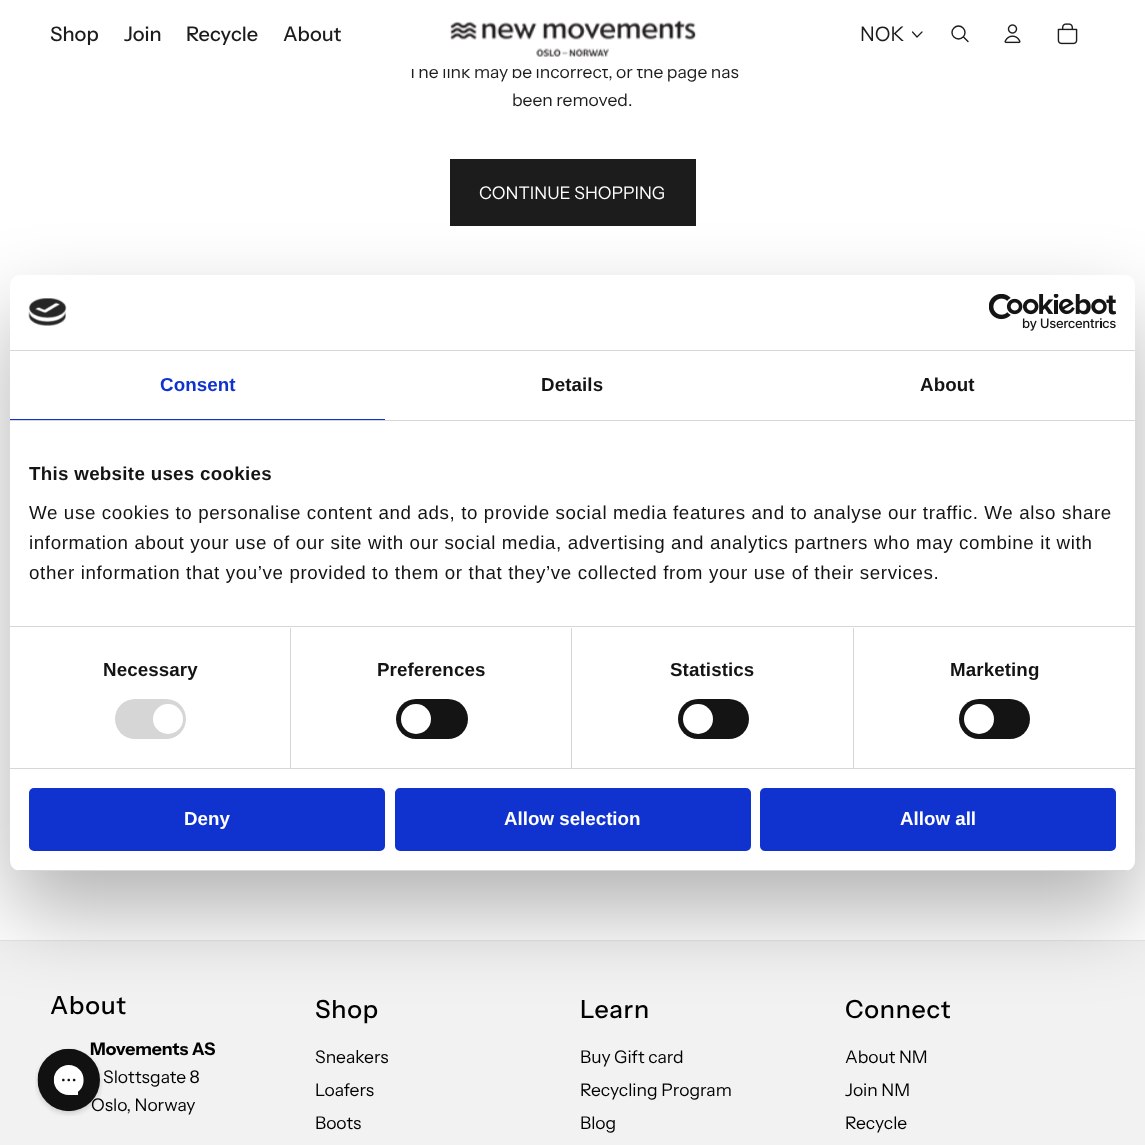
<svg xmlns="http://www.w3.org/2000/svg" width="1145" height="1145">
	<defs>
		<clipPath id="clip1"><rect x="10" y="275" width="1125" height="596" rx="10" /></clipPath>
	</defs>
	<rect width="100%" height="100%" fill="#FFFFFF" />
	<text x="407" y="78" font-family="Instrument Sans" font-size="17.5" fill="#1C1C1C">The link may be incorrect, or the page has</text>
	<rect x="407" y="65" width="328" height="4" fill="#FFFFFF" />
	<g font-family="Instrument Sans" font-size="20" font-weight="500" fill="#1C1C1C">
		<text x="50" y="41">Shop</text>
		<text x="124" y="41">Join</text>
		<text x="186" y="41">Recycle</text>
		<text x="283" y="41">About</text>
	</g>
	<image x="450" y="20" width="247" height="37" href="assets/img1.png" />
	<text x="860" y="41" font-family="Instrument Sans" font-size="20" fill="#1C1C1C">NOK</text>
	<path d="M922 32L917 37L912.5 32" fill="none" stroke="#1C1C1C" stroke-width="1.2" stroke-linecap="round" stroke-linejoin="round" />
	<circle cx="958.5" cy="32.5" r="6.5" fill="none" stroke="#1C1C1C" stroke-width="1.4" />
	<path d="M963.5 37L968 41.5" fill="none" stroke="#1C1C1C" stroke-width="1.4" stroke-linecap="round" stroke-linejoin="round" />
	<image x="1004" y="24" width="17" height="20" href="assets/img2.png" />
	<image x="1057" y="23" width="21" height="22" href="assets/img3.png" />
	<text x="512" y="106" font-family="Instrument Sans" font-size="17.5" fill="#1C1C1C">been removed.</text>
	<rect x="450" y="159" width="246" height="67" fill="#1C1C1C" />
	<text x="479" y="199" font-family="Instrument Sans" font-size="17.5" fill="#FFFFFF">CONTINUE SHOPPING</text>
	<rect x="0" y="940" width="1145" height="1" fill="#E6E6E6" />
	<rect x="0" y="941" width="1145" height="204" fill="#F2F2F2" />
	<rect x="10" y="315" width="1125" height="596" rx="10" fill="#000000" fill-opacity="0.3" filter="blur(42.5px)" />
	<rect x="10" y="275" width="1125" height="596" rx="10" fill="#FFFFFF" />
	<rect x="10" y="350" width="1125" height="1" fill="#D6D6D6" />
	<image x="28" y="298" width="39" height="28" href="assets/img4.png" />
	<image x="989" y="294" width="127" height="37" href="assets/img5.png" />
	<rect x="10" y="420" width="1125" height="1" fill="#D6D6D6" />
	<rect x="10" y="419" width="375" height="1" fill="#1032CF" />
	<text x="160" y="391" font-family="Liberation Sans" font-size="18.75" font-weight="700" letter-spacing="0.1" fill="#1032CF">Consent</text>
	<g font-family="Liberation Sans" font-size="18.75" font-weight="700" letter-spacing="0.1" fill="#141414">
		<text x="541" y="391">Details</text>
		<text x="920" y="391">About</text>
	</g>
	<rect x="10" y="626" width="1125" height="1" fill="#D6D6D6" />
	<text x="29" y="480" font-family="Liberation Sans" font-size="18.75" font-weight="700" letter-spacing="0.3" fill="#141414">This website uses cookies</text>
	<g font-family="Liberation Sans" font-size="18.75" letter-spacing="0.62" fill="#141414">
		<text x="29" y="519">We use cookies to personalise content and ads, to provide social media features and to analyse our traffic. We also share</text>
		<text x="29" y="549">information about your use of our site with our social media, advertising and analytics partners who may combine it with</text>
		<text x="29" y="579">other information that you’ve provided to them or that they’ve collected from your use of their services.</text>
	</g>
	<rect x="10" y="768" width="1125" height="1" fill="#D6D6D6" />
	<rect x="290" y="628" width="1" height="140" fill="#D6D6D6" />
	<text x="103" y="676" font-family="Liberation Sans" font-size="18.75" font-weight="700" letter-spacing="0.1" fill="#141414">Necessary</text>
	<rect x="115" y="699" width="71" height="40" rx="20" fill="#D6D6D6" />
	<circle cx="168" cy="719" r="15" fill="#FFFFFF" />
	<rect x="571" y="628" width="1" height="140" fill="#D6D6D6" />
	<text x="377" y="676" font-family="Liberation Sans" font-size="18.75" font-weight="700" letter-spacing="0.1" fill="#141414">Preferences</text>
	<rect x="396" y="699" width="72" height="40" rx="20" fill="#141414" />
	<circle cx="416" cy="719" r="15" fill="#FFFFFF" />
	<rect x="853" y="628" width="1" height="140" fill="#D6D6D6" />
	<text x="670" y="676" font-family="Liberation Sans" font-size="18.75" font-weight="700" letter-spacing="0.1" fill="#141414">Statistics</text>
	<rect x="678" y="699" width="71" height="40" rx="20" fill="#141414" />
	<circle cx="698" cy="719" r="15" fill="#FFFFFF" />
	<text x="950" y="676" font-family="Liberation Sans" font-size="18.75" font-weight="700" letter-spacing="0.1" fill="#141414">Marketing</text>
	<rect x="959" y="699" width="71" height="40" rx="20" fill="#141414" />
	<circle cx="979" cy="719" r="15" fill="#FFFFFF" />
	<g clip-path="url(#clip1)">
		<rect x="10" y="870" width="1125" height="1" fill="#D6D6D6" />
	</g>
	<rect x="30.5" y="789.5" width="353" height="60" rx="3.5" fill="#1032CF" stroke="#1032CF" stroke-width="3" />
	<text x="184" y="825" font-family="Liberation Sans" font-size="18.75" font-weight="700" fill="#FFFFFF">Deny</text>
	<rect x="396.5" y="789.5" width="353" height="60" rx="3.5" fill="#1032CF" stroke="#1032CF" stroke-width="3" />
	<text x="504" y="825" font-family="Liberation Sans" font-size="18.75" font-weight="700" fill="#FFFFFF">Allow selection</text>
	<rect x="761.5" y="789.5" width="353" height="60" rx="3.5" fill="#1032CF" stroke="#1032CF" stroke-width="3" />
	<text x="900" y="825" font-family="Liberation Sans" font-size="18.75" font-weight="700" fill="#FFFFFF">Allow all</text>
	<text x="50" y="1014" font-family="Instrument Sans" font-size="25" font-weight="500" letter-spacing="0.75" fill="#000000">About</text>
	<text x="90" y="1055" font-family="Instrument Sans" font-size="17.5" font-weight="700" fill="#000000">Movements AS</text>
	<g font-family="Instrument Sans" font-size="17.5" fill="#000000">
		<text x="103" y="1083">Slottsgate 8</text>
		<text x="91" y="1111">Oslo, Norway</text>
	</g>
	<text x="315" y="1018" font-family="Instrument Sans" font-size="25" font-weight="500" letter-spacing="0.75" fill="#000000">Shop</text>
	<g font-family="Instrument Sans" font-size="17.5" fill="#000000">
		<text x="315" y="1063">Sneakers</text>
		<text x="315" y="1096">Loafers</text>
		<text x="315" y="1129">Boots</text>
	</g>
	<text x="580" y="1018" font-family="Instrument Sans" font-size="25" font-weight="500" letter-spacing="0.75" fill="#000000">Learn</text>
	<g font-family="Instrument Sans" font-size="17.5" fill="#000000">
		<text x="580" y="1063">Buy Gift card</text>
		<text x="580" y="1096">Recycling Program</text>
		<text x="580" y="1129">Blog</text>
	</g>
	<text x="845" y="1018" font-family="Instrument Sans" font-size="25" font-weight="500" letter-spacing="0.75" fill="#000000">Connect</text>
	<g font-family="Instrument Sans" font-size="17.5" fill="#000000">
		<text x="845" y="1063">About NM</text>
		<text x="845" y="1096">Join NM</text>
		<text x="845" y="1129">Recycle</text>
	</g>
	<image x="35" y="1048" width="68" height="68" href="assets/img6.png" />
</svg>
